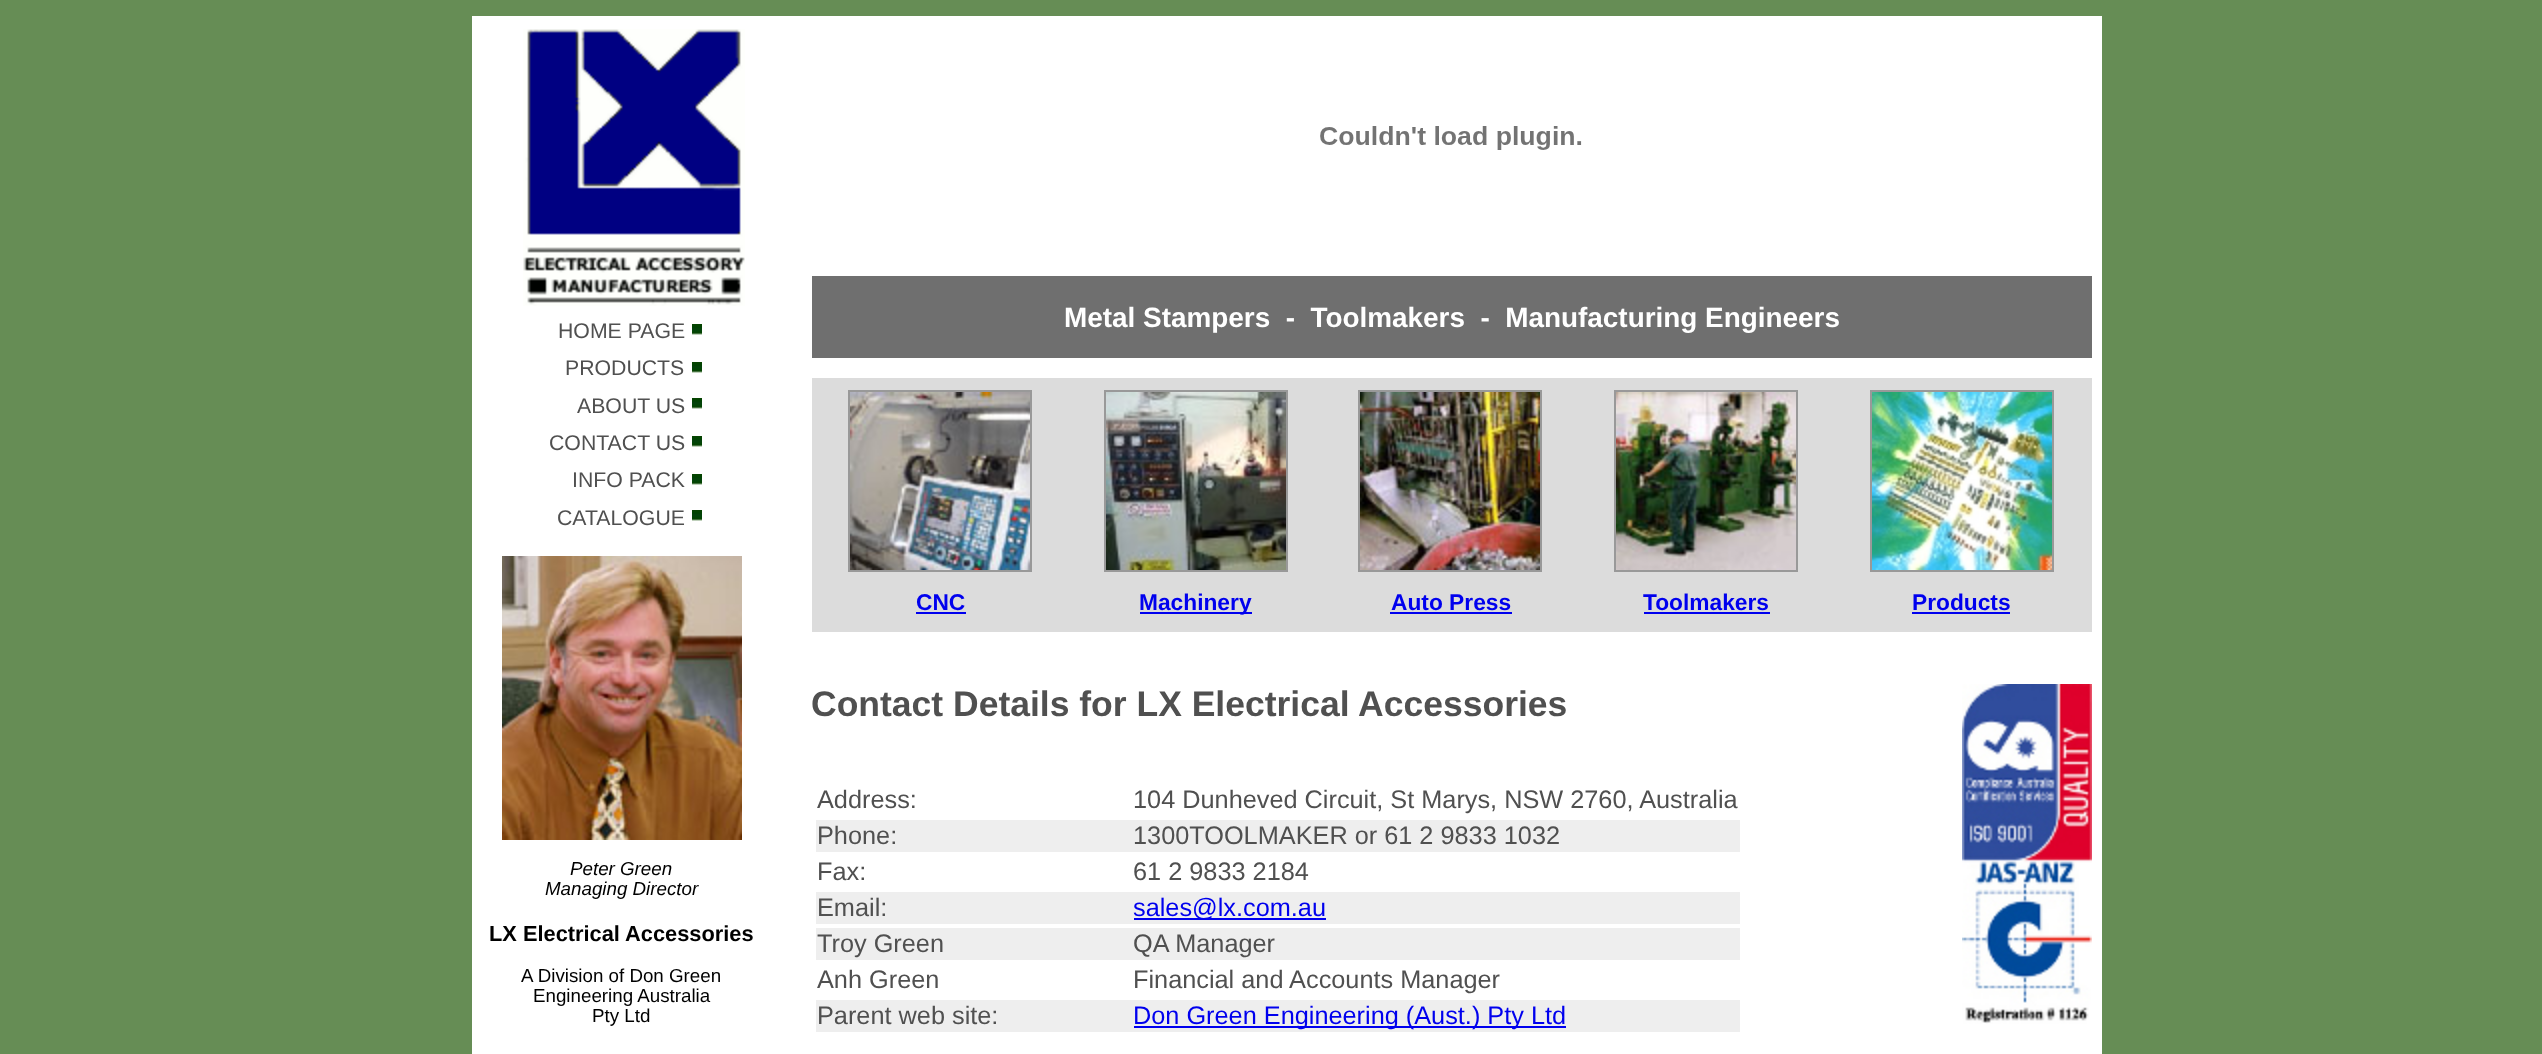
<svg xmlns="http://www.w3.org/2000/svg" width="2542" height="1054">
	<rect width="100%" height="100%" fill="#668D55" />
	<rect x="472" y="16" width="1630" height="1038" fill="#FFFFFF" />
	<image x="1320" y="126" width="262" height="24" href="assets/img1.png" />
	<image x="523" y="29" width="222" height="277" href="assets/img2.png" />
	<text x="558" y="338" font-family="Liberation Sans" font-size="21.25" fill="#505050">HOME PAGE</text>
	<image x="692" y="324" width="10" height="11" href="assets/img3.png" />
	<text x="565" y="375" font-family="Liberation Sans" font-size="21.25" fill="#505050">PRODUCTS</text>
	<image x="692" y="362" width="10" height="11" href="assets/img3.png" />
	<text x="577" y="413" font-family="Liberation Sans" font-size="21.25" fill="#505050">ABOUT US</text>
	<image x="692" y="398" width="10" height="11" href="assets/img3.png" />
	<text x="549" y="450" font-family="Liberation Sans" font-size="21.25" fill="#505050">CONTACT US</text>
	<image x="692" y="436" width="10" height="11" href="assets/img3.png" />
	<text x="572" y="487" font-family="Liberation Sans" font-size="21.25" fill="#505050">INFO PACK</text>
	<image x="692" y="474" width="10" height="11" href="assets/img3.png" />
	<text x="557" y="525" font-family="Liberation Sans" font-size="21.25" fill="#505050">CATALOGUE</text>
	<image x="692" y="510" width="10" height="11" href="assets/img3.png" />
	<image x="502" y="556" width="240" height="284" href="assets/img4.png" />
	<g font-family="Liberation Sans" font-size="18.75" font-style="italic" fill="#000000">
		<text x="570" y="875">Peter Green</text>
		<text x="545" y="895">Managing Director</text>
	</g>
	<text x="489" y="941" font-family="Liberation Sans" font-size="21.8" font-weight="700" fill="#000000">LX Electrical Accessories</text>
	<g font-family="Liberation Sans" font-size="18.75" fill="#000000">
		<text x="521" y="982">A Division of Don Green</text>
		<text x="533" y="1002">Engineering Australia</text>
		<text x="592" y="1022">Pty Ltd</text>
	</g>
	<rect x="812" y="276" width="1280" height="82" fill="#6F6F6F" />
	<text x="1064" y="327" font-family="Liberation Sans" font-size="27.9" font-weight="700" fill="#FFFFFF" xml:space="preserve">Metal Stampers  -  Toolmakers  -  Manufacturing Engineers</text>
	<rect x="812" y="378" width="1280" height="254" fill="#DCDCDC" />
	<rect x="849" y="391" width="182" height="180" fill="none" stroke="#999999" stroke-width="2" />
	<image x="850" y="392" width="180" height="178" href="assets/img5.png" />
	<rect x="1105" y="391" width="182" height="180" fill="none" stroke="#999999" stroke-width="2" />
	<image x="1106" y="392" width="180" height="178" href="assets/img6.png" />
	<rect x="1359" y="391" width="182" height="180" fill="none" stroke="#999999" stroke-width="2" />
	<image x="1360" y="392" width="180" height="178" href="assets/img7.png" />
	<rect x="1615" y="391" width="182" height="180" fill="none" stroke="#999999" stroke-width="2" />
	<image x="1616" y="392" width="180" height="178" href="assets/img8.png" />
	<rect x="1871" y="391" width="182" height="180" fill="none" stroke="#999999" stroke-width="2" />
	<image x="1872" y="392" width="180" height="178" href="assets/img9.png" />
	<text x="916" y="610" font-family="Liberation Sans" font-size="22.75" font-weight="700" fill="#0000EE">CNC</text>
	<rect x="916" y="612" width="50" height="2" fill="#0000EE" />
	<rect x="1140" y="612" width="112" height="2" fill="#0000EE" />
	<g font-family="Liberation Sans" font-size="22.75" font-weight="700" fill="#0000EE">
		<text x="1139" y="610">Machinery</text>
		<text x="1391" y="610">Auto Press</text>
	</g>
	<rect x="1390" y="612" width="122" height="2" fill="#0000EE" />
	<text x="1643" y="610" font-family="Liberation Sans" font-size="22.75" font-weight="700" fill="#0000EE">Toolmakers</text>
	<rect x="1644" y="612" width="126" height="2" fill="#0000EE" />
	<text x="1912" y="610" font-family="Liberation Sans" font-size="22.75" font-weight="700" fill="#0000EE">Products</text>
	<rect x="1912" y="612" width="98" height="2" fill="#0000EE" />
	<text x="811" y="716" font-family="Liberation Sans" font-size="35.5" font-weight="700" fill="#505050">Contact Details for LX Electrical Accessories</text>
	<image x="1962" y="684" width="130" height="340" href="assets/img10.png" />
	<g font-family="Liberation Sans" font-size="25.3" fill="#505050">
		<text x="817" y="808">Address:</text>
		<text x="1133" y="808">104 Dunheved Circuit, St Marys, NSW 2760, Australia</text>
	</g>
	<rect x="816" y="820" width="924" height="32" fill="#EEEEEE" />
	<g font-family="Liberation Sans" font-size="25.3" fill="#505050">
		<text x="817" y="844">Phone:</text>
		<text x="1133" y="844">1300TOOLMAKER or 61 2 9833 1032</text>
		<text x="817" y="880">Fax:</text>
		<text x="1133" y="880">61 2 9833 2184</text>
	</g>
	<rect x="816" y="892" width="924" height="32" fill="#EEEEEE" />
	<text x="817" y="916" font-family="Liberation Sans" font-size="25.3" fill="#505050">Email:</text>
	<rect x="1134" y="918" width="192" height="2" fill="#0000EE" />
	<text x="1133" y="916" font-family="Liberation Sans" font-size="25.3" fill="#0000EE">sales@lx.com.au</text>
	<rect x="816" y="928" width="924" height="32" fill="#EEEEEE" />
	<g font-family="Liberation Sans" font-size="25.3" fill="#505050">
		<text x="817" y="952">Troy Green</text>
		<text x="1133" y="952">QA Manager</text>
		<text x="817" y="988">Anh Green</text>
		<text x="1133" y="988">Financial and Accounts Manager</text>
	</g>
	<rect x="816" y="1000" width="924" height="32" fill="#EEEEEE" />
	<text x="817" y="1024" font-family="Liberation Sans" font-size="25.3" fill="#505050">Parent web site:</text>
	<rect x="1134" y="1026" width="432" height="2" fill="#0000EE" />
	<text x="1133" y="1024" font-family="Liberation Sans" font-size="25.3" fill="#0000EE">Don Green Engineering (Aust.) Pty Ltd</text>
</svg>
